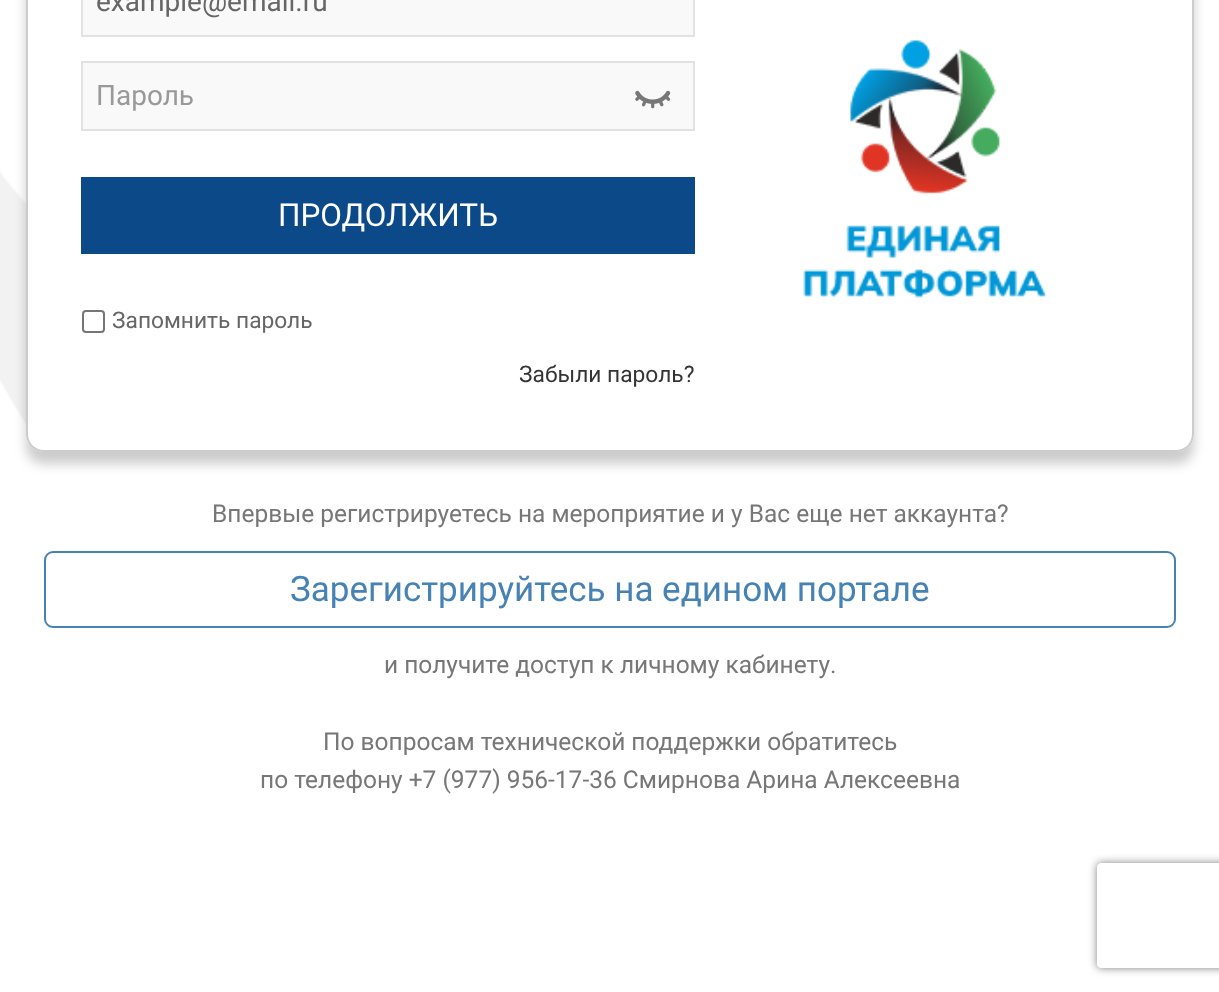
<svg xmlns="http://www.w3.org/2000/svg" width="1219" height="992">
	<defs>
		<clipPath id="clip1"><path d="M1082 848H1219V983H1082ZM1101 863H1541C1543 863 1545 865 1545 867V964C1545 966 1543 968 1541 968H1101C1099 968 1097 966 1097 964V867C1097 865 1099 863 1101 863Z" clip-rule="evenodd" /></clipPath>
	</defs>
	<rect width="100%" height="100%" fill="#FFFFFF" />
	<image x="0" y="0" width="32" height="447" href="assets/img1.png" />
	<rect x="26" y="-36" width="1168" height="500" rx="18" fill="#000000" fill-opacity="0.2" filter="blur(6px)" />
	<path d="M26-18H1194V434C1194 444 1186 452 1176 452H44C34 452 26 444 26 434Z" fill="#FFFFFF" />
	<image x="803" y="40" width="244" height="259" href="assets/img2.png" />
	<path d="M26-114H1194V434C1194 444 1186 452 1176 452H44C34 452 26 444 26 434ZM28-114H1192V434C1192 443 1185 450 1176 450H44C35 450 28 443 28 434Z" fill="#CCCCCC" fill-rule="evenodd" />
	<rect x="82" y="-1" width="612" height="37" fill="#F9F9F9" stroke="#E2E2E2" stroke-width="2" />
	<text x="96" y="11" font-family="Roboto" font-size="28" fill="#666666">example@email.ru</text>
	<rect x="82" y="62" width="612" height="68" fill="#F9F9F9" stroke="#E2E2E2" stroke-width="2" />
	<text x="96" y="105" font-family="Roboto" font-size="28" fill="#999999">Пароль</text>
	<image x="635" y="90" width="36" height="19" href="assets/img3.png" />
	<rect x="81" y="177" width="614" height="77" fill="#0B4988" />
	<text x="278" y="226" font-family="Roboto" font-size="31.5" fill="#FFFFFF">ПРОДОЛЖИТЬ</text>
	<rect x="83" y="311" width="21" height="21" rx="3" fill="none" stroke="#767676" stroke-width="2" />
	<text x="112" y="328" font-family="Roboto" font-size="22.75" fill="#666666">Запомнить пароль</text>
	<text x="519" y="382" font-family="Roboto" font-size="22.75" fill="#343434">Забыли пароль?</text>
	<text x="212" y="522" font-family="Roboto" font-size="24.5" fill="#777777">Впервые регистрируетесь на мероприятие и у Вас еще нет аккаунта?</text>
	<rect x="45" y="552" width="1130" height="75" rx="8" fill="none" stroke="#4682B4" stroke-width="2" />
	<text x="290" y="601" font-family="Roboto" font-size="35" fill="#4682B4">Зарегистрируйтесь на едином портале</text>
	<g font-family="Roboto" font-size="24.5" fill="#777777">
		<text x="384" y="673">и получите доступ к личному кабинету.</text>
		<text x="323" y="750">По вопросам технической поддержки обратитесь</text>
		<text x="260" y="788">по телефону +7 (977) 956-17-36 Смирнова Арина Алексеевна</text>
	</g>
	<g clip-path="url(#clip1)">
		<rect x="1097" y="863" width="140" height="105" rx="4" fill="#808080" filter="blur(4.5px)" />
	</g>
</svg>
